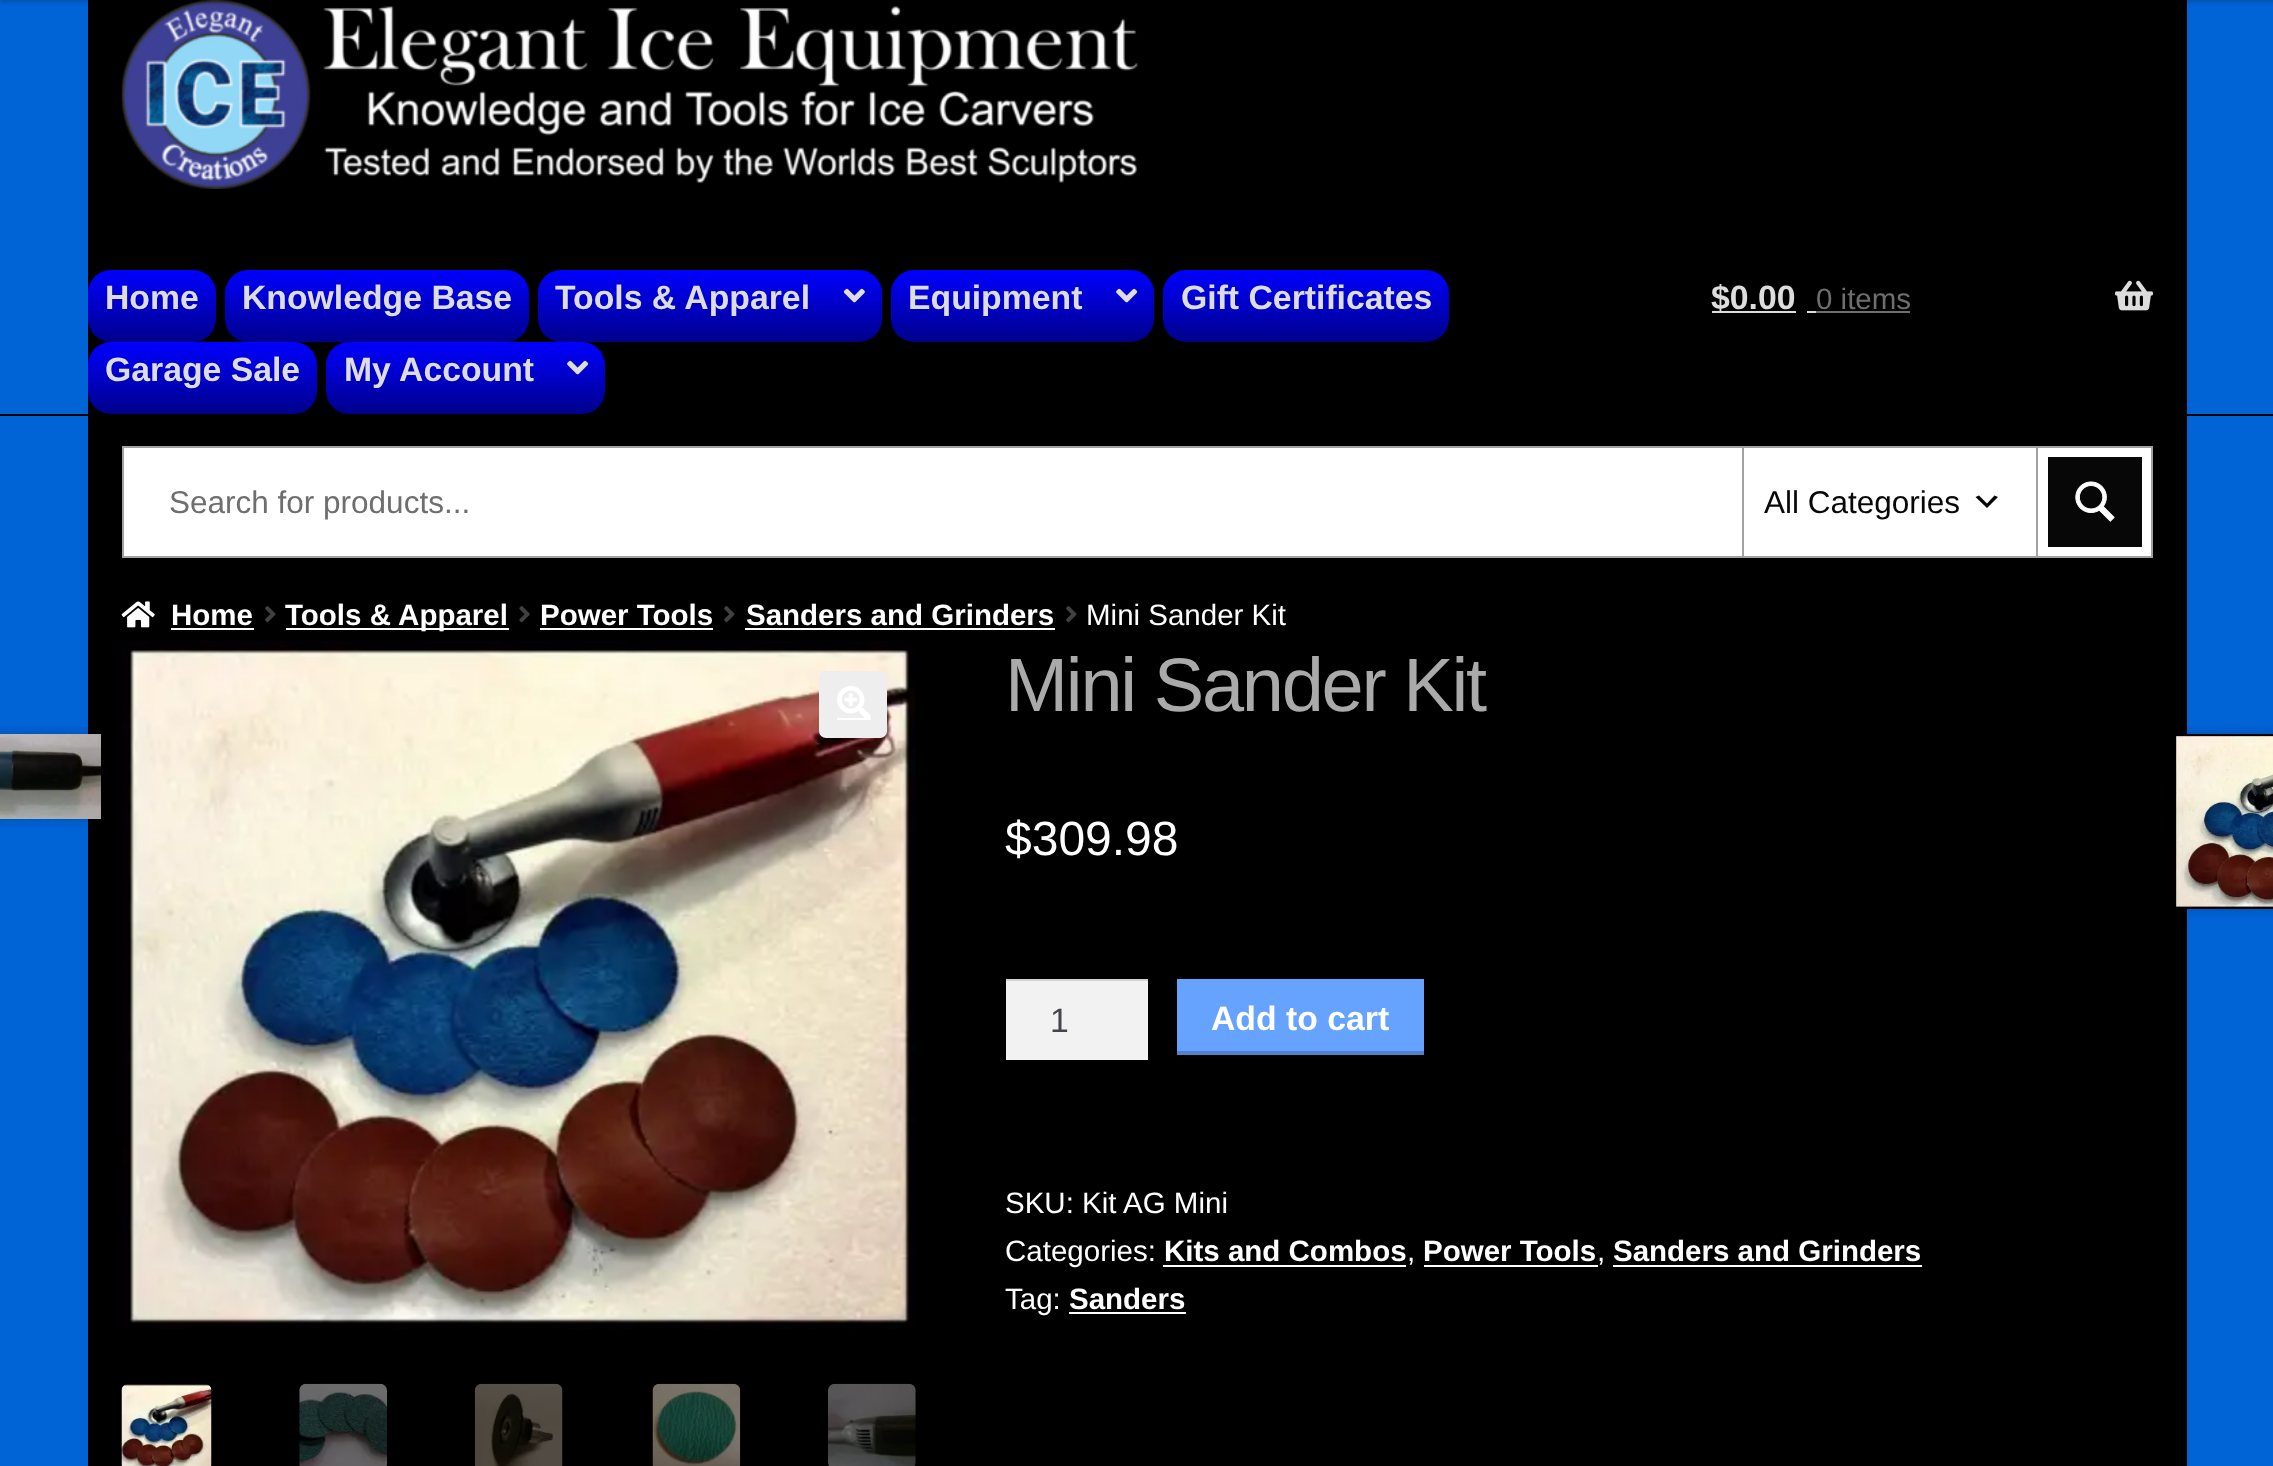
<svg xmlns="http://www.w3.org/2000/svg" width="2273" height="1466">
	<defs>
		<linearGradient id="g1" gradientUnits="userSpaceOnUse" x1="152" y1="270" x2="152" y2="342"><stop offset="0" stop-color="#0000FF" /><stop offset="1" stop-color="#00008B" /></linearGradient>
		<linearGradient id="g2" gradientUnits="userSpaceOnUse" x1="377" y1="270" x2="377" y2="342"><stop offset="0" stop-color="#0000FF" /><stop offset="1" stop-color="#00008B" /></linearGradient>
		<linearGradient id="g3" gradientUnits="userSpaceOnUse" x1="710" y1="270" x2="710" y2="342"><stop offset="0" stop-color="#0000FF" /><stop offset="1" stop-color="#00008B" /></linearGradient>
		<linearGradient id="g4" gradientUnits="userSpaceOnUse" x1="1023" y1="270" x2="1023" y2="342"><stop offset="0" stop-color="#0000FF" /><stop offset="1" stop-color="#00008B" /></linearGradient>
		<linearGradient id="g5" gradientUnits="userSpaceOnUse" x1="1306" y1="270" x2="1306" y2="342"><stop offset="0" stop-color="#0000FF" /><stop offset="1" stop-color="#00008B" /></linearGradient>
		<linearGradient id="g6" gradientUnits="userSpaceOnUse" x1="203" y1="342" x2="203" y2="414"><stop offset="0" stop-color="#0000FF" /><stop offset="1" stop-color="#00008B" /></linearGradient>
		<linearGradient id="g7" gradientUnits="userSpaceOnUse" x1="466" y1="342" x2="466" y2="414"><stop offset="0" stop-color="#0000FF" /><stop offset="1" stop-color="#00008B" /></linearGradient>
	</defs>
	<rect width="100%" height="100%" fill="#0063D6" />
	<rect x="88" y="0" width="2099" height="414" fill="#000000" />
	<image x="121" y="0" width="1018" height="189" href="assets/img1.png" />
	<rect x="0" y="-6" width="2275" height="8" fill="#000000" fill-opacity="0.2" filter="blur(2px)" />
	<rect x="0" y="414" width="2273" height="2" fill="#000000" />
	<rect x="88" y="270" width="128" height="72" rx="23" fill="url(#g1)" />
	<text x="105" y="309" font-family="Liberation Sans" font-size="33.75" font-weight="700" fill="#DDDDDD">Home</text>
	<rect x="225" y="270" width="304" height="72" rx="23" fill="url(#g2)" />
	<text x="242" y="309" font-family="Liberation Sans" font-size="33.75" font-weight="700" fill="#DDDDDD">Knowledge Base</text>
	<rect x="538" y="270" width="344" height="72" rx="23" fill="url(#g3)" />
	<text x="555" y="309" font-family="Liberation Sans" font-size="33.75" font-weight="700" fill="#DDDDDD">Tools &amp; Apparel</text>
	<image x="843" y="288" width="22" height="15" href="assets/img2.png" />
	<rect x="891" y="270" width="263" height="72" rx="23" fill="url(#g4)" />
	<text x="908" y="309" font-family="Liberation Sans" font-size="33.75" font-weight="700" fill="#DDDDDD">Equipment</text>
	<image x="1116" y="288" width="22" height="15" href="assets/img3.png" />
	<rect x="1163" y="270" width="286" height="72" rx="23" fill="url(#g5)" />
	<text x="1181" y="309" font-family="Liberation Sans" font-size="33.75" font-weight="700" fill="#DDDDDD">Gift Certificates</text>
	<rect x="88" y="342" width="229" height="72" rx="23" fill="url(#g6)" />
	<text x="105" y="381" font-family="Liberation Sans" font-size="33.75" font-weight="700" fill="#DDDDDD">Garage Sale</text>
	<rect x="326" y="342" width="279" height="72" rx="23" fill="url(#g7)" />
	<text x="344" y="381" font-family="Liberation Sans" font-size="33.75" font-weight="700" fill="#DDDDDD">My Account</text>
	<image x="567" y="360" width="22" height="15" href="assets/img3.png" />
	<rect x="1712" y="311" width="84" height="2" fill="#DDDDDD" />
	<text x="1711" y="309" font-family="Liberation Sans" font-size="33.75" font-weight="700" fill="#DDDDDD">$0.00</text>
	<text x="1816" y="309" font-family="Liberation Sans" font-size="29.5" fill="#6E6E6E">0 items</text>
	<rect x="1816" y="311" width="94" height="2" fill="#6F6F6F" />
	<image x="2115" y="280" width="38" height="31" href="assets/img4.png" />
	<rect x="1807" y="311" width="9" height="2" fill="#DDDDDD" />
	<rect x="88" y="416" width="2099" height="1050" fill="#000000" />
	<rect x="123" y="447" width="2029" height="110" fill="#FFFFFF" stroke="#A1A1A1" stroke-width="2" />
	<text x="169" y="513" font-family="Liberation Sans" font-size="31.5" fill="#6E6E6E">Search for products...</text>
	<rect x="1742" y="448" width="2" height="108" fill="#A1A1A1" />
	<text x="1764" y="513" font-family="Liberation Sans" font-size="31.5" fill="#070707">All Categories</text>
	<path d="M1979 495.5L1987 503.5L1994.5 495.5L1998 497L1987 508L1975.5 497Z" fill="#070707" />
	<rect x="2036" y="448" width="2" height="108" fill="#A1A1A1" />
	<rect x="2048" y="457" width="94" height="90" fill="#070707" />
	<image x="2075" y="481" width="40" height="41" href="assets/img5.png" />
	<image x="121" y="601" width="34" height="27" href="assets/img6.png" />
	<text x="171" y="625" font-family="Liberation Sans" font-size="29.5" font-weight="700" fill="#FFFFFF">Home</text>
	<rect x="171" y="628" width="83" height="2" fill="#FFFFFF" />
	<image x="265" y="606" width="11" height="17" href="assets/img7.png" />
	<rect x="286" y="628" width="223" height="2" fill="#FFFFFF" />
	<text x="285" y="625" font-family="Liberation Sans" font-size="29.5" font-weight="700" fill="#FFFFFF">Tools &amp; Apparel</text>
	<image x="519" y="606" width="11" height="17" href="assets/img8.png" />
	<text x="540" y="625" font-family="Liberation Sans" font-size="29.5" font-weight="700" fill="#FFFFFF">Power Tools</text>
	<rect x="540" y="628" width="173" height="2" fill="#FFFFFF" />
	<image x="724" y="606" width="11" height="17" href="assets/img7.png" />
	<text x="746" y="625" font-family="Liberation Sans" font-size="29.5" font-weight="700" fill="#FFFFFF">Sanders and Grinders</text>
	<rect x="745" y="628" width="310" height="2" fill="#FFFFFF" />
	<image x="1066" y="606" width="11" height="17" href="assets/img7.png" />
	<text x="1086" y="625" font-family="Liberation Sans" font-size="29.5" fill="#FFFFFF">Mini Sander Kit</text>
	<image x="122" y="641" width="794" height="688" href="assets/img9.png" />
	<rect x="819" y="671" width="68" height="67" rx="7" fill="#EEEEEE" />
	<rect x="837" y="718" width="34" height="2" fill="#FFFFFF" />
	<image x="837" y="686" width="34" height="32" href="assets/img10.png" />
	<image x="121" y="1384" width="91" height="82" href="assets/img11.png" />
	<image x="299" y="1383" width="88" height="83" href="assets/img12.png" />
	<image x="474" y="1383" width="89" height="83" href="assets/img13.png" />
	<image x="652" y="1383" width="89" height="83" href="assets/img14.png" />
	<image x="828" y="1383" width="88" height="83" href="assets/img15.png" />
	<text x="1005" y="711" font-family="Liberation Sans" font-size="75.75" letter-spacing="-2.25" fill="#AAAAAA">Mini Sander Kit</text>
	<text x="1005" y="855" font-family="Liberation Sans" font-size="48" fill="#FFFFFF">$309.98</text>
	<rect x="1006" y="981" width="142" height="79" fill="#F2F2F2" />
	<rect x="1006" y="979" width="142" height="2" fill="#D4D4D4" />
	<text x="1050" y="1032" font-family="Liberation Sans" font-size="33.75" fill="#43454B">1</text>
	<rect x="1177" y="979" width="247" height="72" fill="#66A3FF" />
	<rect x="1177" y="1051" width="247" height="4" fill="#5282CC" />
	<text x="1211" y="1030" font-family="Liberation Sans" font-size="33.75" font-weight="700" fill="#FFFFFF">Add to cart</text>
	<g font-family="Liberation Sans" font-size="29.5" fill="#FFFFFF">
		<text x="1005" y="1213">SKU: Kit AG Mini</text>
		<text x="1005" y="1261">Categories:</text>
	</g>
	<text x="1164" y="1261" font-family="Liberation Sans" font-size="29.5" font-weight="700" fill="#FFFFFF">Kits and Combos</text>
	<rect x="1163" y="1265" width="243" height="2" fill="#FFFFFF" />
	<text x="1407" y="1261" font-family="Liberation Sans" font-size="29.5" fill="#FFFFFF">,</text>
	<text x="1423" y="1261" font-family="Liberation Sans" font-size="29.5" font-weight="700" fill="#FFFFFF">Power Tools</text>
	<rect x="1424" y="1265" width="174" height="2" fill="#FFFFFF" />
	<text x="1597" y="1261" font-family="Liberation Sans" font-size="29.5" fill="#FFFFFF">,</text>
	<text x="1613" y="1261" font-family="Liberation Sans" font-size="29.5" font-weight="700" fill="#FFFFFF">Sanders and Grinders</text>
	<rect x="1613" y="1265" width="309" height="2" fill="#FFFFFF" />
	<text x="1005" y="1309" font-family="Liberation Sans" font-size="29.5" fill="#FFFFFF">Tag:</text>
	<text x="1069" y="1309" font-family="Liberation Sans" font-size="29.5" font-weight="700" fill="#FFFFFF">Sanders</text>
	<rect x="1069" y="1312" width="117" height="2" fill="#FFFFFF" />
	<rect x="-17" y="734" width="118" height="85" fill="#000000" fill-opacity="0.2" filter="blur(5.5px)" />
	<image x="0" y="734" width="101" height="85" href="assets/img16.png" />
	<rect x="2174" y="734" width="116" height="175" fill="#000000" fill-opacity="0.2" filter="blur(5.5px)" />
	<image x="2174" y="734" width="99" height="175" href="assets/img17.png" />
</svg>
